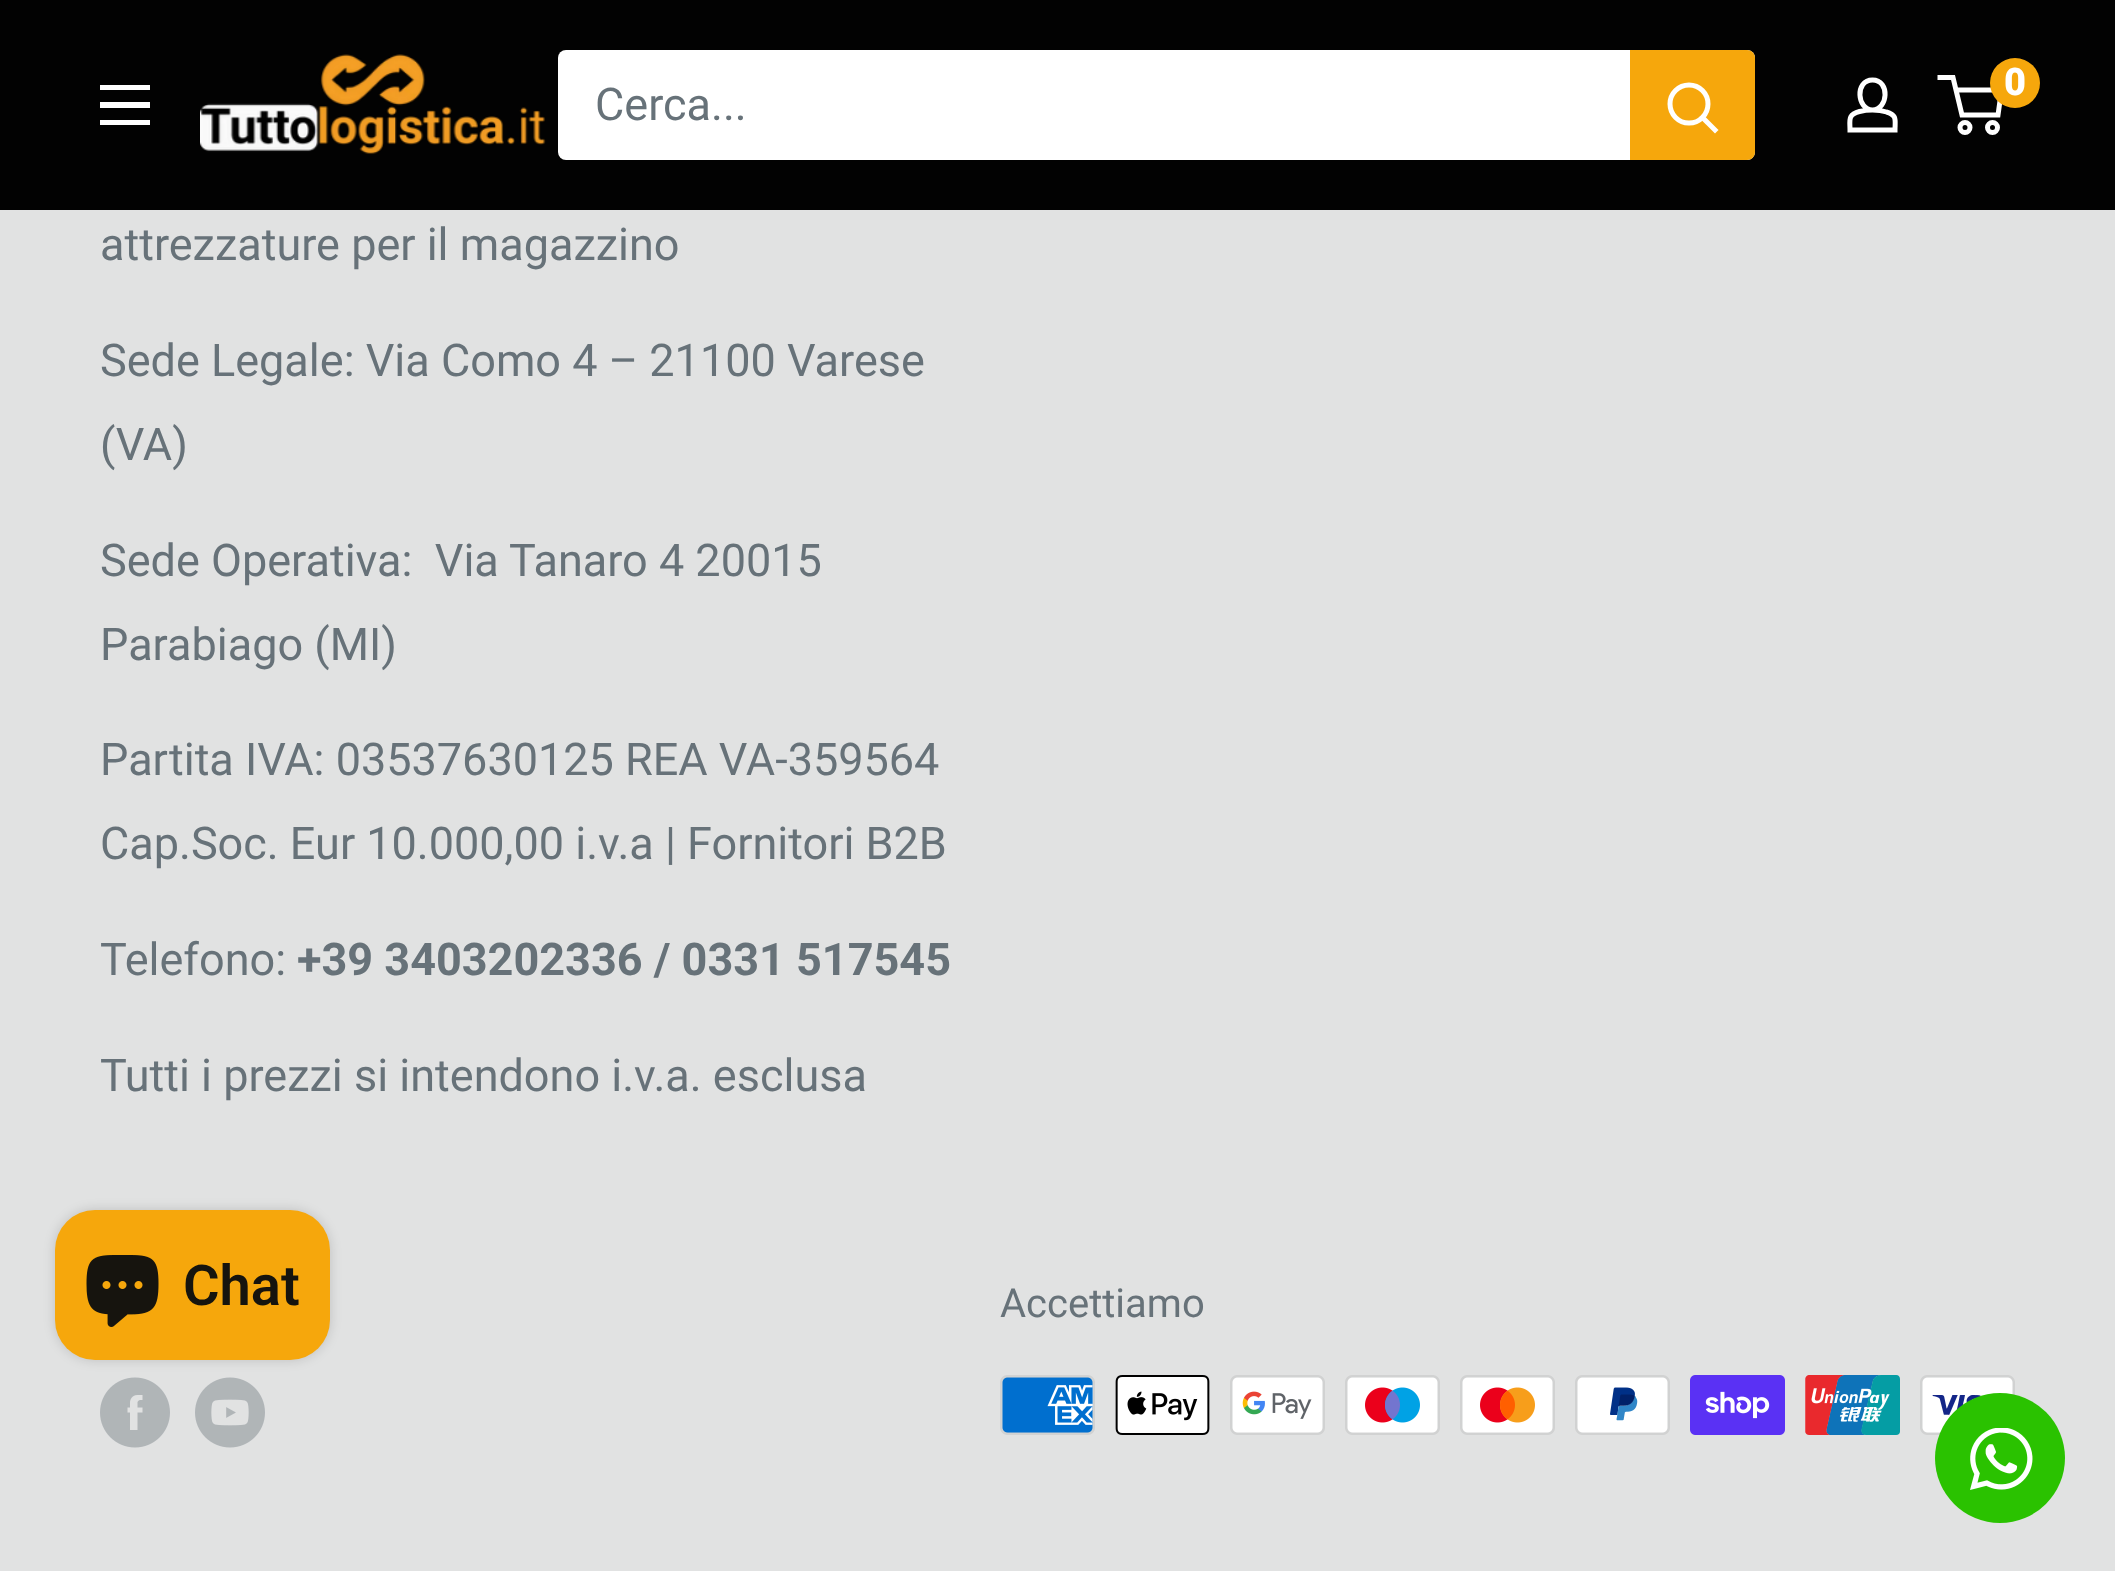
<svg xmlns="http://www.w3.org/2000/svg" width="2115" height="1571">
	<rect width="100%" height="100%" fill="#E1E2E2" />
	<rect x="0" y="0" width="2115" height="210" fill="#020202" />
	<image x="200" y="54" width="346" height="101" href="assets/img1.png" />
	<path d="M1872.5 110C1877 110 1882 110.5 1886.5 112C1897.5 115 1895 120.5 1895 130H1850C1850 120 1847.5 114.5 1859.5 111.5C1863.5 110.5 1868 110 1872.5 110ZM1872.5 110C1857 110 1854.5 80 1872.5 80C1890.5 80 1888 110 1872.5 110Z" fill="none" stroke="#FFFFFF" stroke-width="5" />
	<circle cx="1965" cy="127.5" r="5" fill="none" stroke="#FFFFFF" stroke-width="5" />
	<circle cx="1992.5" cy="127.5" r="5" fill="none" stroke="#FFFFFF" stroke-width="5" />
	<path d="M1956 90H2001.5L1998 115H1962L1953 77.5H1937.5" fill="none" stroke="#FFFFFF" stroke-width="5" />
	<circle cx="2015" cy="83" r="25" fill="#F6A70C" />
	<text x="2004" y="95" font-family="Roboto" font-size="38" font-weight="900" fill="#FFFFFF">0</text>
	<path d="M100 120H150V125H100ZM100 85H150V90H100ZM100 102H150V108H100Z" fill="#FFFFFF" fill-rule="evenodd" />
	<rect x="558" y="50" width="1197" height="110" rx="8" fill="#FFFFFF" />
	<text x="595" y="120" font-family="Roboto" font-size="45" fill="#677279">Cerca...</text>
	<path d="M1630 50H1747C1751.5 50 1755 53.5 1755 58V152C1755 156.5 1751.5 160 1747 160H1630Z" fill="#F6A70C" />
	<path d="M1715 130L1702.5 117.5" fill="none" stroke="#FFFFFF" stroke-width="5" stroke-linecap="square" />
	<circle cx="1689" cy="104" r="19" fill="none" stroke="#FFFFFF" stroke-width="5" />
	<g font-family="Roboto" font-size="45" fill="#677279">
		<text x="100" y="260">attrezzature per il magazzino</text>
		<text x="100" y="376">Sede Legale: Via Como 4 – 21100 Varese</text>
		<text x="100" y="460">(VA)</text>
		<text x="100" y="576" xml:space="preserve">Sede Operativa:  Via Tanaro 4 20015</text>
		<text x="100" y="660">Parabiago (MI)</text>
		<text x="100" y="775">Partita IVA: 03537630125 REA VA-359564</text>
		<text x="100" y="859">Cap.Soc. Eur 10.000,00 i.v.a | Fornitori B2B</text>
		<text x="100" y="975">Telefono:</text>
	</g>
	<text x="297" y="975" font-family="Roboto" font-size="45" font-weight="700" fill="#677279">+39 3403202336 / 0331 517545</text>
	<text x="100" y="1091" font-family="Roboto" font-size="45" fill="#677279">Tutti i prezzi si intendono i.v.a. esclusa</text>
	<text x="1000" y="1317" font-family="Roboto" font-size="40" fill="#677279">Accettiamo</text>
	<image x="1000" y="1375" width="95" height="60" href="assets/img2.png" />
	<image x="1115" y="1375" width="95" height="60" href="assets/img3.png" />
	<image x="1230" y="1375" width="95" height="60" href="assets/img4.png" />
	<image x="1345" y="1375" width="95" height="60" href="assets/img5.png" />
	<image x="1460" y="1375" width="95" height="60" href="assets/img6.png" />
	<image x="1575" y="1375" width="95" height="60" href="assets/img7.png" />
	<image x="1690" y="1375" width="95" height="60" href="assets/img8.png" />
	<image x="1805" y="1375" width="95" height="60" href="assets/img9.png" />
	<image x="1920" y="1375" width="95" height="60" href="assets/img10.png" />
	<image x="100" y="1377" width="70" height="71" href="assets/img11.png" />
	<image x="195" y="1377" width="70" height="71" href="assets/img12.png" />
	<rect x="55" y="1210" width="275" height="150" rx="40" fill="#000000" fill-opacity="0.15" filter="blur(6px)" />
	<rect x="55" y="1210" width="275" height="150" rx="40" fill="#F6A70C" />
	<image x="86" y="1255" width="73" height="72" href="assets/img13.png" />
	<text x="183" y="1305" font-family="Roboto" font-size="56" font-weight="600" fill="#16140E">Chat</text>
	<circle cx="2000" cy="1458" r="65" fill="#2AC200" />
	<image x="1970" y="1428" width="63" height="62" href="assets/img14.png" />
</svg>
